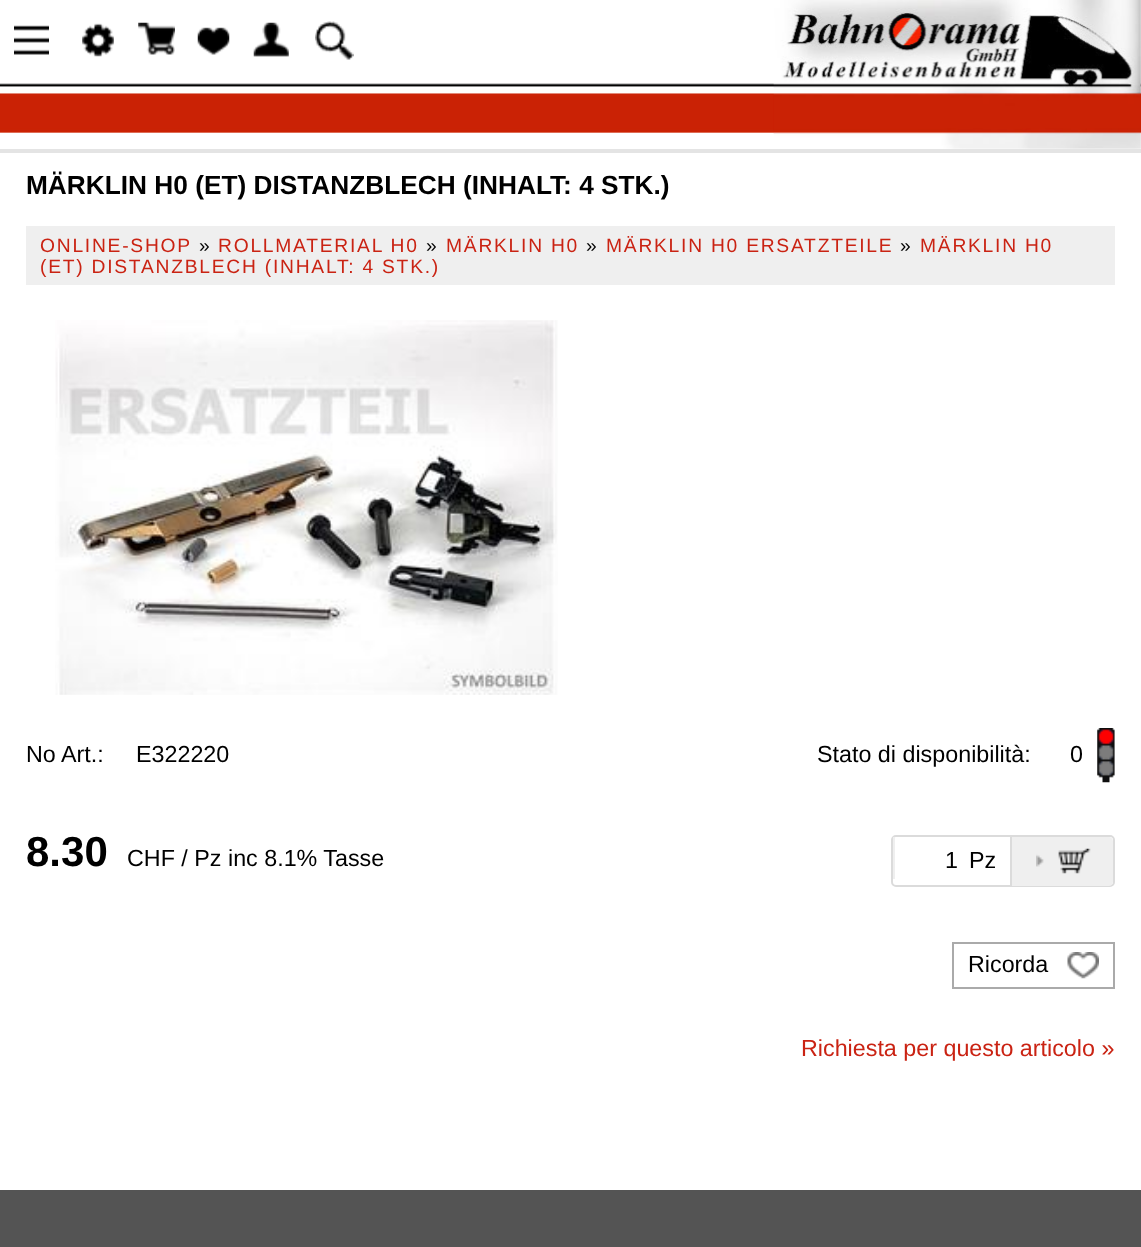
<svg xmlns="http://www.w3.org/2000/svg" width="1141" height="1247">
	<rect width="100%" height="100%" fill="#FFFFFF" />
	<image x="0" y="83" width="1141" height="50" href="assets/img1.png" />
	<rect x="0" y="149" width="1141" height="4" fill="#E4E4E4" />
	<image x="14" y="25" width="35" height="30" href="assets/img2.png" />
	<image x="82" y="23" width="32" height="34" href="assets/img3.png" />
	<image x="138" y="22" width="37" height="33" href="assets/img4.png" />
	<image x="197" y="27" width="33" height="28" href="assets/img5.png" />
	<image x="253" y="22" width="36" height="35" href="assets/img6.png" />
	<image x="773" y="0" width="368" height="149" href="assets/img7.png" />
	<image x="315" y="21" width="39" height="39" href="assets/img8.png" />
	<text x="26" y="194" font-family="Liberation Sans" font-size="26.25" font-weight="700" fill="#000000">MÄRKLIN H0 (ET) DISTANZBLECH (INHALT: 4 STK.)</text>
	<rect x="26" y="226" width="1089" height="59" fill="#EFEFEF" />
	<text x="40" y="252" font-family="Liberation Sans" font-size="19.25" letter-spacing="1.75" fill="#CA2313">ONLINE-SHOP</text>
	<text x="199" y="252" font-family="Liberation Sans" font-size="19.25" letter-spacing="1.75" fill="#000000">»</text>
	<text x="218" y="252" font-family="Liberation Sans" font-size="19.25" letter-spacing="1.75" fill="#CA2313">ROLLMATERIAL H0</text>
	<text x="426" y="252" font-family="Liberation Sans" font-size="19.25" letter-spacing="1.75" fill="#000000">»</text>
	<text x="446" y="252" font-family="Liberation Sans" font-size="19.25" letter-spacing="1.75" fill="#CA2313">MÄRKLIN H0</text>
	<text x="586" y="252" font-family="Liberation Sans" font-size="19.25" letter-spacing="1.75" fill="#000000">»</text>
	<text x="606" y="252" font-family="Liberation Sans" font-size="19.25" letter-spacing="1.75" fill="#CA2313">MÄRKLIN H0 ERSATZTEILE</text>
	<text x="900" y="252" font-family="Liberation Sans" font-size="19.25" letter-spacing="1.75" fill="#000000">»</text>
	<g font-family="Liberation Sans" font-size="19.25" letter-spacing="1.75" fill="#CA2313">
		<text x="920" y="252">MÄRKLIN H0</text>
		<text x="40" y="273">(ET) DISTANZBLECH (INHALT: 4 STK.)</text>
	</g>
	<image x="55" y="320" width="503" height="375" href="assets/img9.png" />
	<g font-family="Liberation Sans" font-size="23.3" fill="#000000">
		<text x="26" y="762">No Art.:</text>
		<text x="136" y="762">E322220</text>
	</g>
	<text x="26" y="866" font-family="Liberation Sans" font-size="42" font-weight="700" fill="#000000">8.30</text>
	<g font-family="Liberation Sans" font-size="23.3" fill="#000000">
		<text x="127" y="866">CHF / Pz inc 8.1% Tasse</text>
		<text x="817" y="762">Stato di disponibilità:</text>
	</g>
	<image x="1097" y="728" width="18" height="55" href="assets/img10.png" />
	<text x="1070" y="762" font-family="Liberation Sans" font-size="23.3" fill="#000000">0</text>
	<rect x="892" y="836" width="222" height="50" rx="4" fill="none" stroke="#DBDBDB" stroke-width="2" />
	<rect x="893" y="837" width="2" height="42" fill="#EFEFEF" />
	<g font-family="Liberation Sans" font-size="23.3" fill="#000000">
		<text x="945" y="868">1</text>
		<text x="969" y="868">Pz</text>
	</g>
	<path d="M1010 837H1109C1111 837 1113 839 1113 841V882C1113 884 1111 886 1109 886H1010Z" fill="#EFEFEF" />
	<image x="1036" y="848" width="55" height="26" href="assets/img11.png" />
	<rect x="1010" y="837" width="2" height="49" fill="#DBDBDB" />
	<rect x="953" y="943" width="161" height="45" fill="none" stroke="#AAAAAA" stroke-width="2" />
	<text x="968" y="972" font-family="Liberation Sans" font-size="23.3" fill="#000000">Ricorda</text>
	<image x="1067" y="952" width="32" height="27" href="assets/img12.png" />
	<text x="801" y="1056" font-family="Liberation Sans" font-size="23.3" fill="#CA2313">Richiesta per questo articolo »</text>
	<rect x="0" y="1190" width="1141" height="57" fill="#545454" />
</svg>
